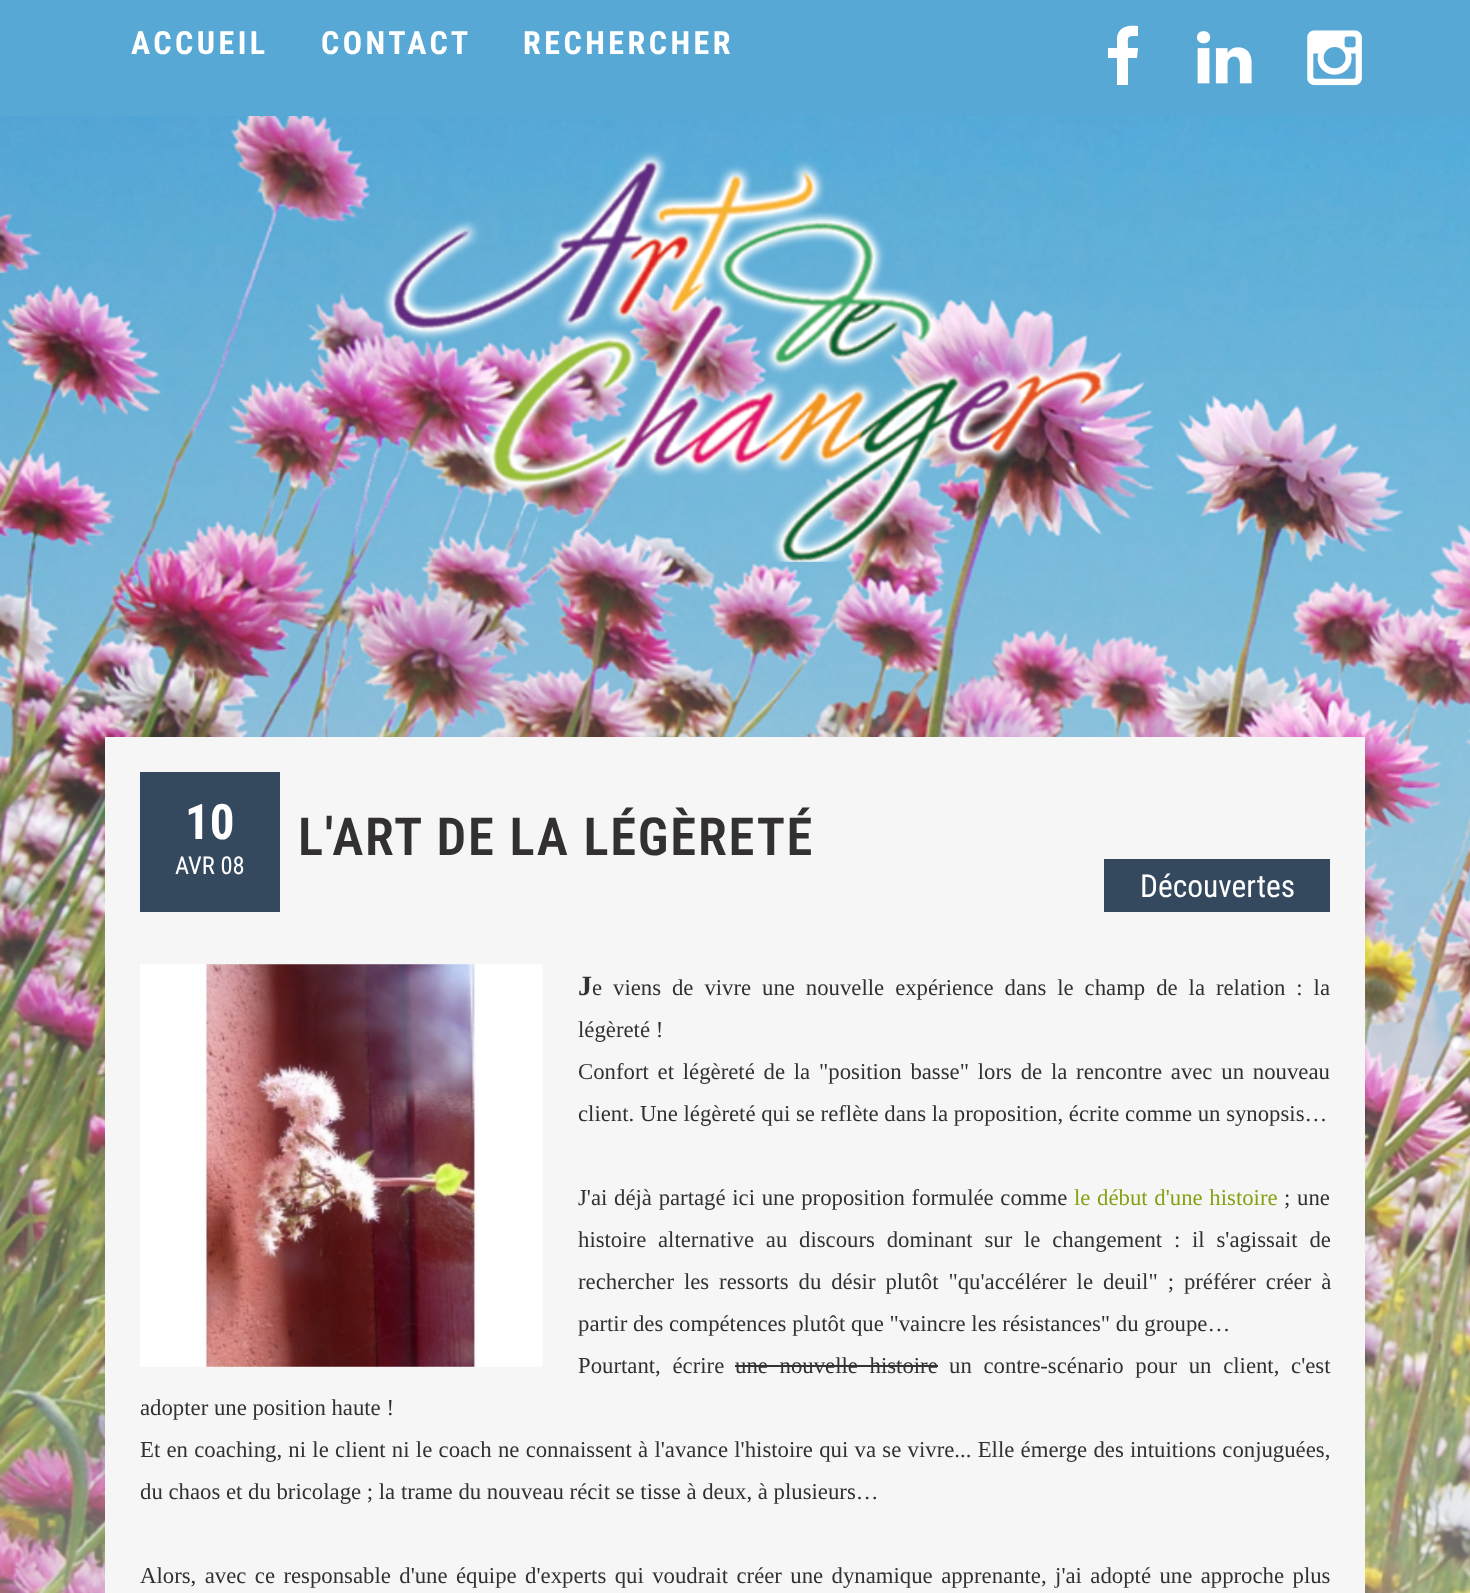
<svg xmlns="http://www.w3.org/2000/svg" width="1470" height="1593">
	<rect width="100%" height="100%" fill="#FFFFFF" />
	<image x="0" y="116" width="1470" height="1477" href="assets/img1.png" />
	<rect x="0" y="0" width="1470" height="116" fill="#58A8D6" />
	<g font-family="Roboto Condensed" font-size="32" font-weight="700" letter-spacing="3.5" fill="#FFFFFF">
		<text x="131" y="54">ACCUEIL</text>
		<text x="321" y="54">CONTACT</text>
		<text x="523" y="54">RECHERCHER</text>
	</g>
	<path d="M1138 26V36C1126 36 1128 36 1128 48H1138L1137 58H1128V85H1117V58H1108V48H1117V37C1119 26 1129 25 1138 26Z" fill="#FFFFFF" />
	<image x="1197" y="31" width="55" height="53" href="assets/img2.png" />
	<image x="1307" y="30" width="55" height="56" href="assets/img3.png" />
	<image x="382" y="151" width="732" height="411" href="assets/img4.png" />
	<rect x="105" y="737" width="1260" height="856" fill="#F6F6F6" />
	<rect x="140" y="772" width="140" height="140" fill="#34495E" />
	<text x="185" y="839" font-family="Roboto Condensed" font-size="49" font-weight="700" fill="#FFFFFF">10</text>
	<text x="175" y="874" font-family="Roboto Condensed" font-size="24.5" fill="#FFFFFF">AVR 08</text>
	<text x="298" y="855" font-family="Roboto Condensed" font-size="52.5" font-weight="600" letter-spacing="1.75" fill="#333031">L'ART DE LA LÉGÈRETÉ</text>
	<rect x="1104" y="859" width="226" height="53" fill="#34495E" />
	<text x="1140" y="897" font-family="Roboto Condensed" font-size="31.5" fill="#FFFFFF">Découvertes</text>
	<image x="140" y="964" width="403" height="403" href="assets/img5.png" />
	<text x="578" y="995" font-family="Liberation Serif" font-size="28" font-weight="700" fill="#333031">J</text>
	<g font-family="Liberation Serif" font-size="22.75" fill="#333031">
		<text x="592" y="995" word-spacing="5.25">e viens de vivre une nouvelle expérience dans le champ de la relation : la</text>
		<text x="578" y="1037">légèreté !</text>
		<text x="578" y="1079" word-spacing="3.1">Confort et légèreté de la "position basse" lors de la rencontre avec un nouveau</text>
		<text x="578" y="1121">client. Une légèreté qui se reflète dans la proposition, écrite comme un synopsis…</text>
		<text x="578" y="1205" word-spacing="1">J'ai déjà partagé ici une proposition formulée comme</text>
	</g>
	<text x="1074" y="1205" word-spacing="1" font-family="Liberation Serif" font-size="22.75" fill="#82A313">le début d'une histoire</text>
	<g font-family="Liberation Serif" font-size="22.75" fill="#333031">
		<text x="1284" y="1205" word-spacing="1">; une</text>
		<text x="578" y="1247" word-spacing="6.1">histoire alternative au discours dominant sur le changement : il s'agissait de</text>
		<text x="578" y="1289" word-spacing="4.25">rechercher les ressorts du désir plutôt "qu'accélérer le deuil" ; préférer créer à</text>
		<text x="578" y="1331">partir des compétences plutôt que "vaincre les résistances" du groupe…</text>
		<text x="578" y="1373" word-spacing="6">Pourtant, écrire</text>
		<text x="735" y="1373" word-spacing="6">une nouvelle histoire</text>
	</g>
	<rect x="735" y="1365" width="203" height="2" fill="#333333" />
	<g font-family="Liberation Serif" font-size="22.75" fill="#333031">
		<text x="949" y="1373" word-spacing="6">un contre-scénario pour un client, c'est</text>
		<text x="140" y="1415">adopter une position haute !</text>
		<text x="140" y="1457" word-spacing="0.6">Et en coaching, ni le client ni le coach ne connaissent à l'avance l'histoire qui va se vivre... Elle émerge des intuitions conjuguées,</text>
		<text x="140" y="1499">du chaos et du bricolage ; la trame du nouveau récit se tisse à deux, à plusieurs…</text>
		<text x="140" y="1583" word-spacing="2.75">Alors, avec ce responsable d'une équipe d'experts qui voudrait créer une dynamique apprenante, j'ai adopté une approche plus</text>
	</g>
</svg>
